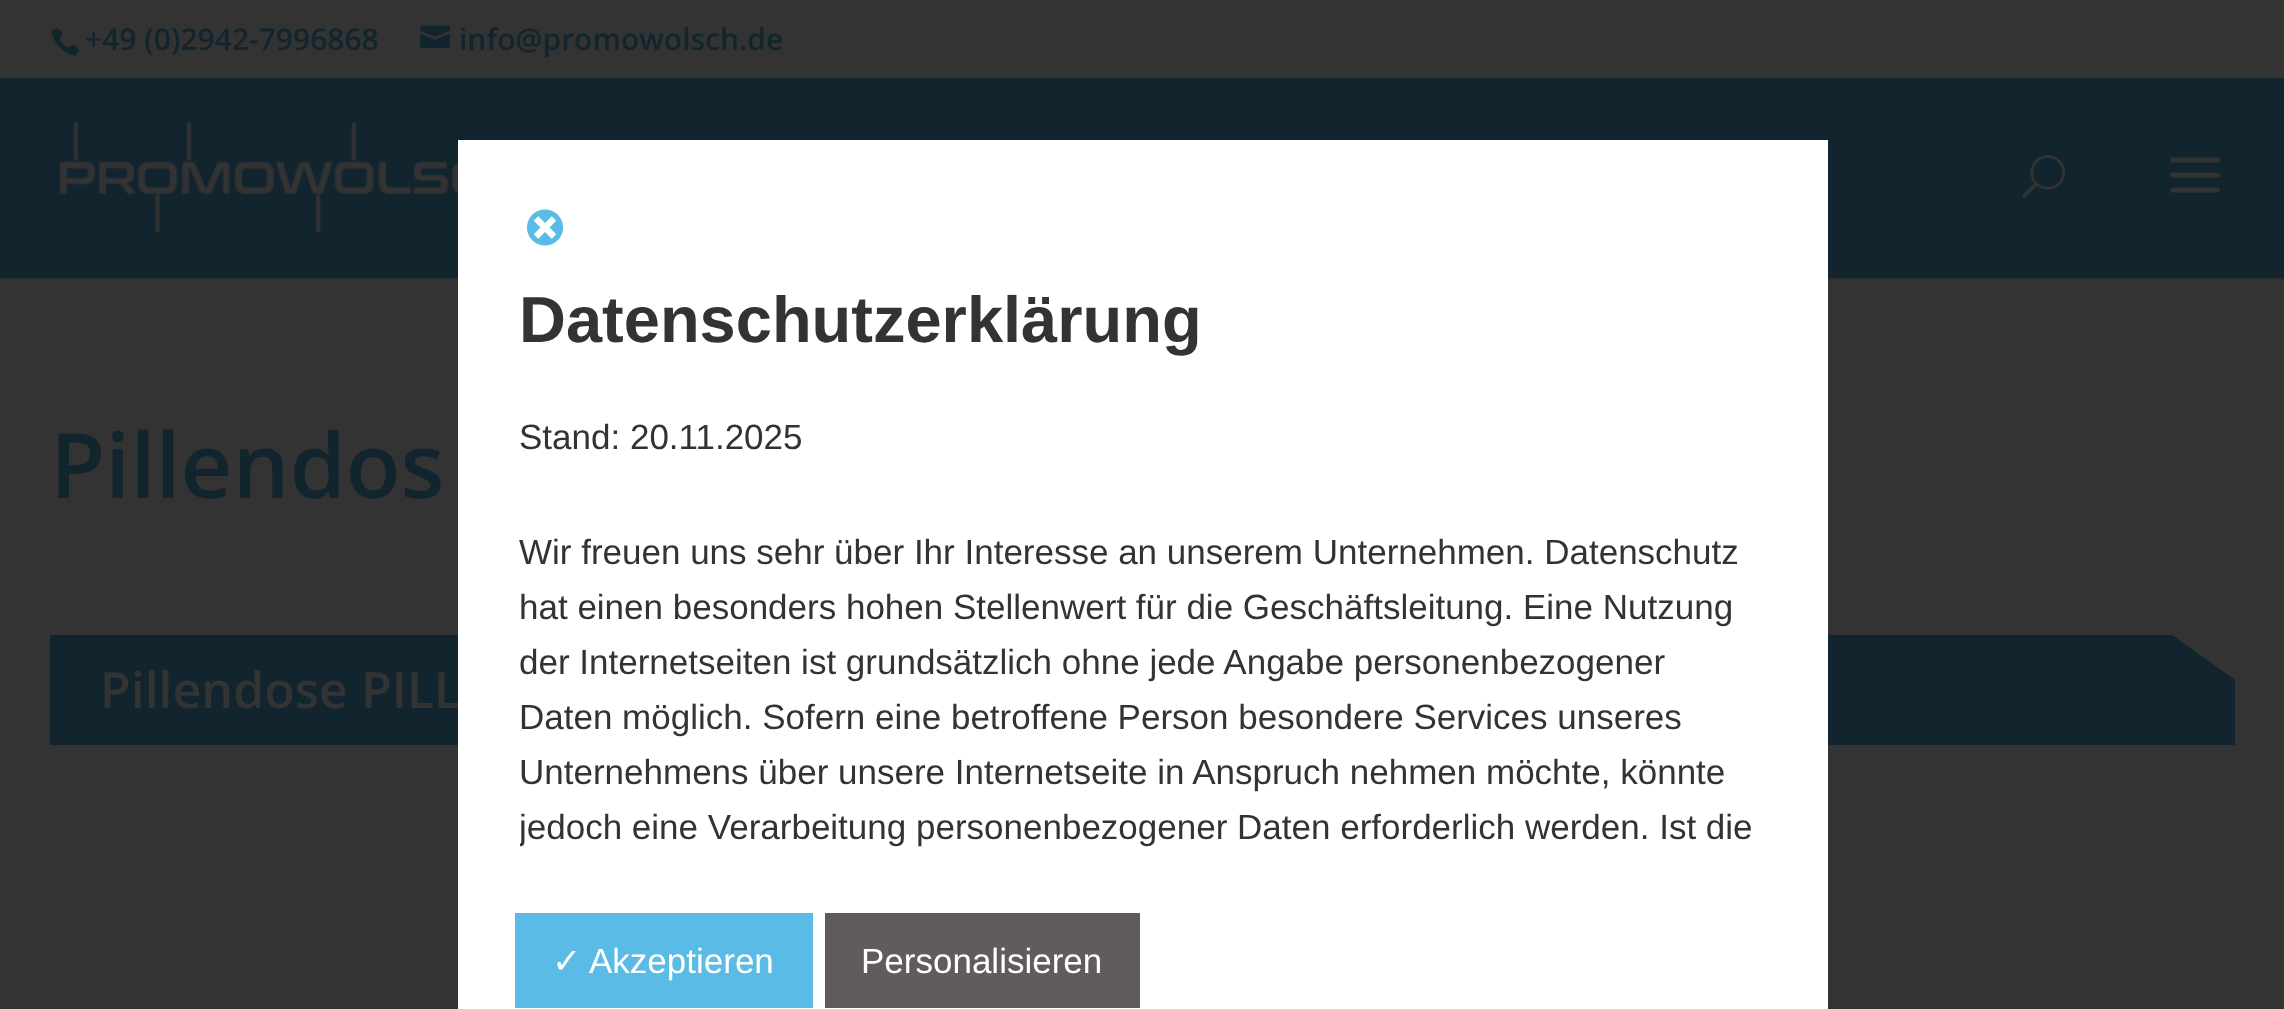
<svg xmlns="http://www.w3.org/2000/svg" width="2284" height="1009">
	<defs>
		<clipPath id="clip1"><rect x="520" y="258" width="1308" height="605" /></clipPath>
	</defs>
	<rect width="100%" height="100%" fill="#333333" />
	<image x="51" y="28" width="28" height="28" href="assets/img1.png" />
	<text x="85" y="50" font-family="Open Sans" font-size="30" font-weight="600" fill="#12252E">+49 (0)2942-7996868</text>
	<image x="420" y="25" width="30" height="24" href="assets/img2.png" />
	<text x="459" y="50" font-family="Open Sans" font-size="30" font-weight="600" fill="#12252E">info@promowolsch.de</text>
	<rect x="0" y="278" width="2284" height="2" fill="#2E2E2E" />
	<rect x="0" y="78" width="2284" height="200" fill="#12252E" />
	<image x="59" y="122" width="399" height="111" href="assets/img3.png" />
	<image x="2022" y="155" width="43" height="43" href="assets/img4.png" />
	<image x="2170" y="157" width="50" height="36" href="assets/img5.png" />
	<text x="50" y="498" font-family="Open Sans" font-size="90" font-weight="600" fill="#12252E">Pillendos</text>
	<path d="M50 635V745H2235V680L2172 635Z" fill="#12252E" />
	<text x="100" y="708" font-family="Open Sans" font-size="50" font-weight="600" fill="#333333">Pillendose PILL</text>
	<rect x="458" y="140" width="1370" height="869" fill="#FFFFFF" />
	<image x="527" y="209" width="36" height="37" href="assets/img6.png" />
	<text x="519" y="342" font-family="Liberation Sans" font-size="65" font-weight="700" fill="#333333">Datenschutzerklärung</text>
	<g font-family="Liberation Sans" font-size="35" fill="#333333">
		<text x="519" y="449">Stand: 20.11.2025</text>
		<text x="519" y="564">Wir freuen uns sehr über Ihr Interesse an unserem Unternehmen. Datenschutz</text>
		<text x="519" y="619">hat einen besonders hohen Stellenwert für die Geschäftsleitung. Eine Nutzung</text>
		<text x="519" y="674">der Internetseiten ist grundsätzlich ohne jede Angabe personenbezogener</text>
		<text x="519" y="729">Daten möglich. Sofern eine betroffene Person besondere Services unseres</text>
		<text x="519" y="784">Unternehmens über unsere Internetseite in Anspruch nehmen möchte, könnte</text>
	</g>
	<g clip-path="url(#clip1)">
		<text x="519" y="839" font-family="Liberation Sans" font-size="35" fill="#333333">jedoch eine Verarbeitung personenbezogener Daten erforderlich werden. Ist die</text>
	</g>
	<rect x="515" y="913" width="298" height="95" fill="#59BBE6" />
	<text x="552" y="973" font-family="DejaVu Sans" font-size="35" fill="#FFFFFF">✓</text>
	<text x="589" y="973" font-family="Liberation Sans" font-size="35" fill="#FFFFFF">Akzeptieren</text>
	<rect x="825" y="913" width="315" height="95" fill="#615B5B" />
	<text x="861" y="973" font-family="Liberation Sans" font-size="35" fill="#FFFFFF">Personalisieren</text>
</svg>
